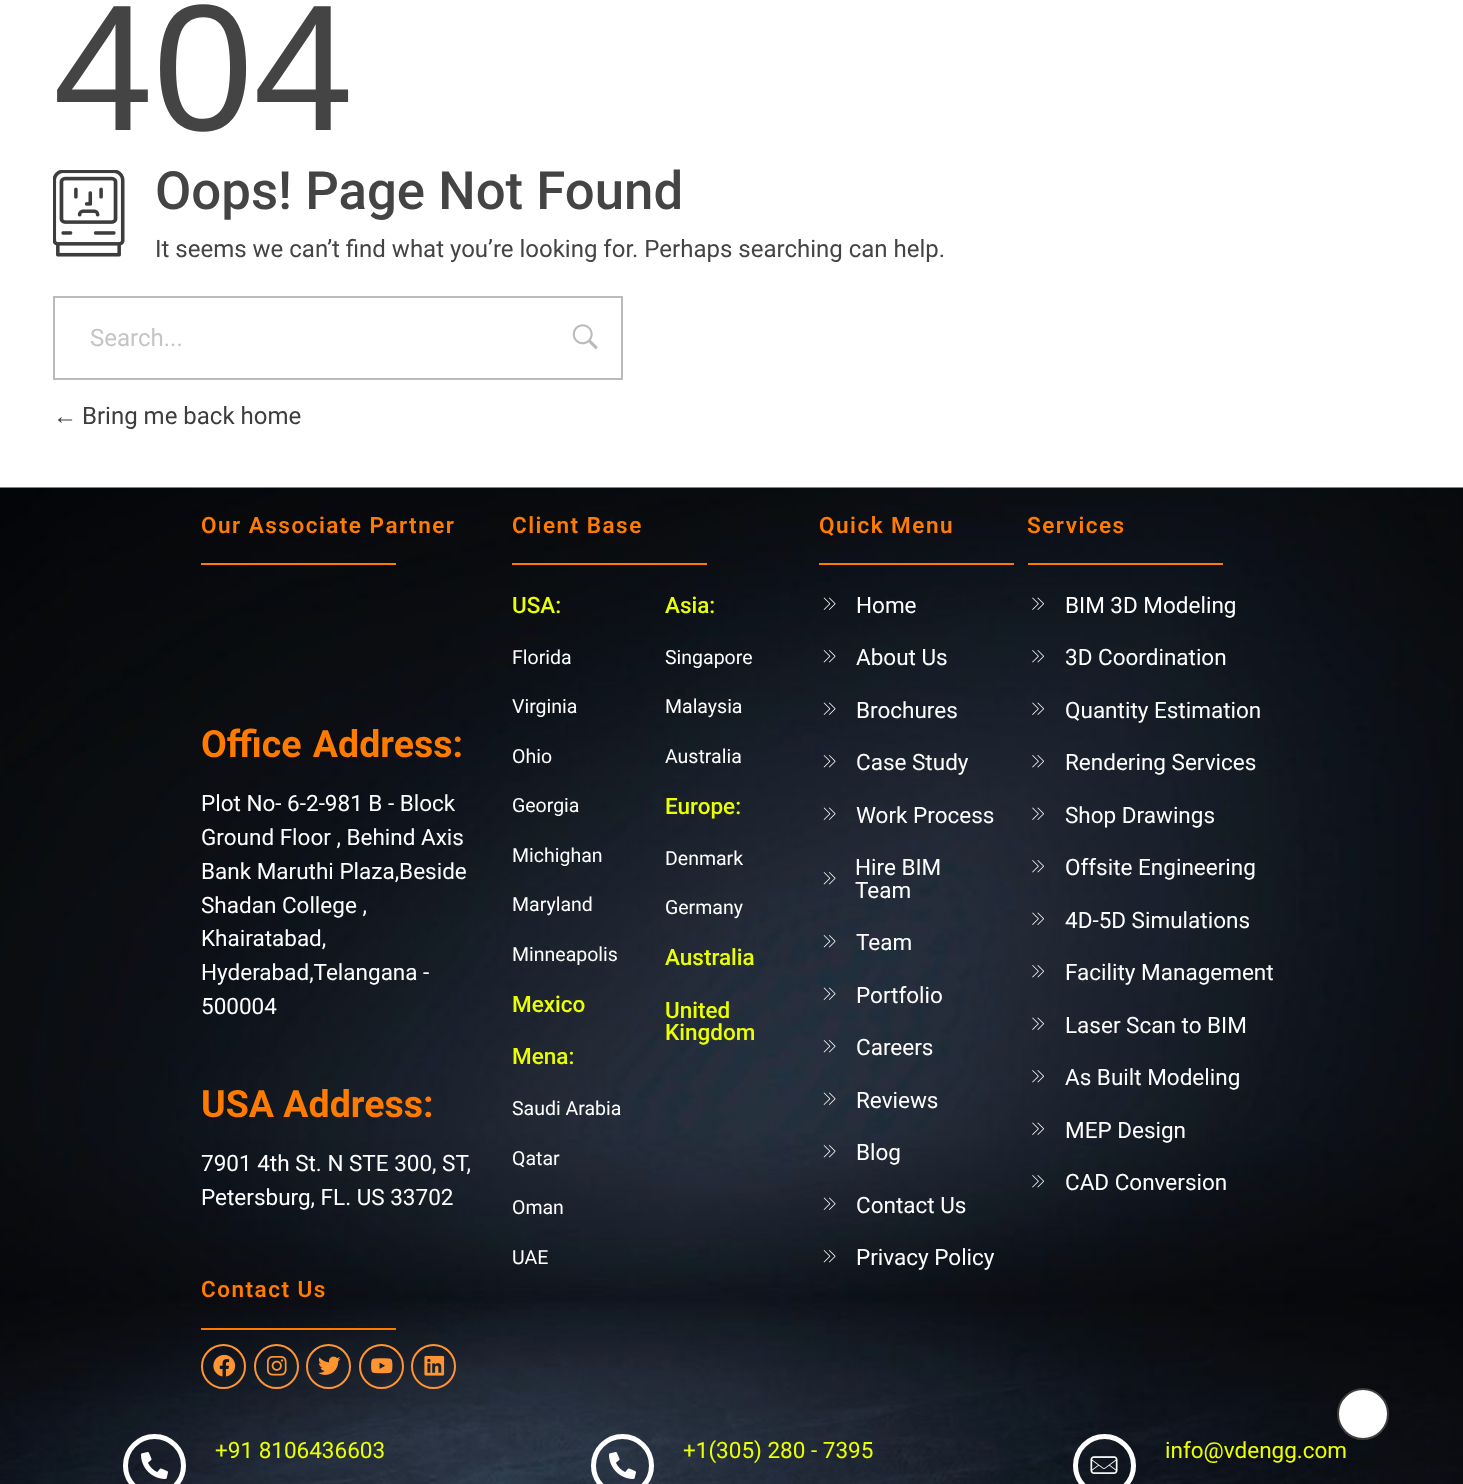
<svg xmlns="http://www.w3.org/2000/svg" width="1463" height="1484">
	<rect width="100%" height="100%" fill="#FFFFFF" />
	<text x="53" y="130" font-family="Liberation Sans" font-size="180" fill="#444444">404</text>
	<image x="53" y="170" width="72" height="87" href="assets/img1.png" />
	<text x="155" y="209" font-family="Roboto" font-size="52.75" font-weight="500" fill="#444444">Oops! Page Not Found</text>
	<text x="155" y="257" font-family="Roboto" font-size="24" fill="#444444">It seems we can’t find what you’re looking for. Perhaps searching can help.</text>
	<rect x="54" y="297" width="568" height="82" fill="none" stroke="#BBBBBB" stroke-width="2" />
	<text x="90" y="346" font-family="Roboto" font-size="24" fill="#C5C5C5">Search...</text>
	<image x="572" y="324" width="26" height="26" href="assets/img2.png" />
	<text x="53" y="424" font-family="Liberation Sans" font-size="24" fill="#3D3D3D">←</text>
	<text x="82" y="424" font-family="Roboto" font-size="24" fill="#3D3D3D">Bring me back home</text>
	<image x="0" y="487" width="1463" height="997" href="assets/img3.png" />
	<text x="201" y="533" font-family="Roboto" font-size="22.5" font-weight="600" letter-spacing="1.5" fill="#FF7B00">Our Associate Partner</text>
	<rect x="201" y="563" width="195" height="2" fill="#FF7B00" />
	<text x="201" y="757" word-spacing="2" font-family="Roboto" font-size="37.5" font-weight="700" fill="#FF7B00">Office Address:</text>
	<g font-family="Roboto" font-size="22.5" fill="#FFFFFF">
		<text x="201" y="811">Plot No- 6-2-981 B - Block</text>
		<text x="201" y="845">Ground Floor , Behind Axis</text>
		<text x="201" y="879">Bank Maruthi Plaza,Beside</text>
		<text x="201" y="913">Shadan College ,</text>
		<text x="201" y="946">Khairatabad,</text>
		<text x="201" y="980">Hyderabad,Telangana -</text>
		<text x="201" y="1014">500004</text>
	</g>
	<text x="201" y="1117" font-family="Roboto" font-size="37.5" font-weight="700" fill="#FF7B00">USA Address:</text>
	<g font-family="Roboto" font-size="22.5" fill="#FFFFFF">
		<text x="201" y="1171">7901 4th St. N STE 300, ST,</text>
		<text x="201" y="1205">Petersburg, FL. US 33702</text>
	</g>
	<text x="201" y="1297" font-family="Roboto" font-size="22.5" font-weight="600" letter-spacing="1.5" fill="#FF7B00">Contact Us</text>
	<rect x="201" y="1328" width="195" height="2" fill="#FF7B00" />
	<circle cx="223.5" cy="1366.5" r="21.5" fill="none" stroke="#FF9532" stroke-width="2" />
	<image x="213" y="1355" width="23" height="22" href="assets/img4.png" />
	<circle cx="276.5" cy="1366.5" r="21.5" fill="none" stroke="#FF9532" stroke-width="2" />
	<image x="266" y="1356" width="21" height="20" href="assets/img5.png" />
	<circle cx="328.5" cy="1366.5" r="21.5" fill="none" stroke="#FF9532" stroke-width="2" />
	<image x="318" y="1356" width="23" height="19" href="assets/img6.png" />
	<circle cx="381.5" cy="1366.5" r="21.5" fill="none" stroke="#FF9532" stroke-width="2" />
	<image x="371" y="1358" width="22" height="16" href="assets/img7.png" />
	<circle cx="433.5" cy="1366.5" r="21.5" fill="none" stroke="#FF9532" stroke-width="2" />
	<image x="424" y="1355" width="21" height="21" href="assets/img8.png" />
	<text x="512" y="533" font-family="Roboto" font-size="22.5" font-weight="600" letter-spacing="1.5" fill="#FF7B00">Client Base</text>
	<rect x="512" y="563" width="195" height="2" fill="#FF7B00" />
	<text x="512" y="613" font-family="Roboto" font-size="22.5" font-weight="500" fill="#EAFF00">USA:</text>
	<g font-family="Roboto" font-size="19.5" fill="#FFFFFF">
		<text x="512" y="664">Florida</text>
		<text x="512" y="713">Virginia</text>
		<text x="512" y="763">Ohio</text>
		<text x="512" y="812">Georgia</text>
		<text x="512" y="862">Michighan</text>
		<text x="512" y="911">Maryland</text>
		<text x="512" y="961">Minneapolis</text>
	</g>
	<g font-family="Roboto" font-size="22.5" font-weight="500" fill="#EAFF00">
		<text x="512" y="1012">Mexico</text>
		<text x="512" y="1064">Mena:</text>
	</g>
	<g font-family="Roboto" font-size="19.5" fill="#FFFFFF">
		<text x="512" y="1115">Saudi Arabia</text>
		<text x="512" y="1165">Qatar</text>
		<text x="512" y="1214">Oman</text>
		<text x="512" y="1264">UAE</text>
	</g>
	<text x="665" y="613" font-family="Roboto" font-size="22.5" font-weight="500" fill="#EAFF00">Asia:</text>
	<g font-family="Roboto" font-size="19.5" fill="#FFFFFF">
		<text x="665" y="664">Singapore</text>
		<text x="665" y="713">Malaysia</text>
		<text x="665" y="763">Australia</text>
	</g>
	<text x="665" y="814" font-family="Roboto" font-size="22.5" font-weight="500" fill="#EAFF00">Europe:</text>
	<g font-family="Roboto" font-size="19.5" fill="#FFFFFF">
		<text x="665" y="865">Denmark</text>
		<text x="665" y="914">Germany</text>
	</g>
	<g font-family="Roboto" font-size="22.5" font-weight="500" fill="#EAFF00">
		<text x="665" y="965">Australia</text>
		<text x="665" y="1018">United</text>
		<text x="665" y="1040">Kingdom</text>
	</g>
	<text x="819" y="533" font-family="Roboto" font-size="22.5" font-weight="600" letter-spacing="1.5" fill="#FF7B00">Quick Menu</text>
	<rect x="819" y="563" width="195" height="2" fill="#FF7B00" />
	<image x="823" y="597" width="13" height="13" href="assets/img9.png" />
	<text x="856" y="613" font-family="Roboto" font-size="22.5" fill="#FFFFFF">Home</text>
	<image x="823" y="650" width="13" height="13" href="assets/img10.png" />
	<text x="856" y="665" font-family="Roboto" font-size="22.5" fill="#FFFFFF">About Us</text>
	<image x="823" y="702" width="13" height="13" href="assets/img11.png" />
	<text x="856" y="718" font-family="Roboto" font-size="22.5" fill="#FFFFFF">Brochures</text>
	<image x="823" y="755" width="13" height="13" href="assets/img12.png" />
	<text x="856" y="770" font-family="Roboto" font-size="22.5" fill="#FFFFFF">Case Study</text>
	<image x="823" y="807" width="13" height="13" href="assets/img13.png" />
	<text x="856" y="823" font-family="Roboto" font-size="22.5" fill="#FFFFFF">Work Process</text>
	<image x="823" y="872" width="13" height="13" href="assets/img14.png" />
	<g font-family="Roboto" font-size="22.5" fill="#FFFFFF">
		<text x="855" y="875">Hire BIM</text>
		<text x="855" y="898">Team</text>
	</g>
	<image x="823" y="935" width="13" height="13" href="assets/img15.png" />
	<text x="856" y="950" font-family="Roboto" font-size="22.5" fill="#FFFFFF">Team</text>
	<image x="823" y="987" width="13" height="13" href="assets/img16.png" />
	<text x="856" y="1003" font-family="Roboto" font-size="22.5" fill="#FFFFFF">Portfolio</text>
	<image x="823" y="1040" width="13" height="13" href="assets/img17.png" />
	<text x="856" y="1055" font-family="Roboto" font-size="22.5" fill="#FFFFFF">Careers</text>
	<image x="823" y="1092" width="13" height="13" href="assets/img18.png" />
	<text x="856" y="1108" font-family="Roboto" font-size="22.5" fill="#FFFFFF">Reviews</text>
	<image x="823" y="1145" width="13" height="13" href="assets/img19.png" />
	<text x="856" y="1160" font-family="Roboto" font-size="22.5" fill="#FFFFFF">Blog</text>
	<image x="823" y="1197" width="13" height="13" href="assets/img20.png" />
	<text x="856" y="1213" font-family="Roboto" font-size="22.5" fill="#FFFFFF">Contact Us</text>
	<image x="823" y="1250" width="13" height="13" href="assets/img21.png" />
	<text x="856" y="1265" font-family="Roboto" font-size="22.5" fill="#FFFFFF">Privacy Policy</text>
	<text x="1027" y="533" font-family="Roboto" font-size="22.5" font-weight="600" letter-spacing="1.5" fill="#FF7B00">Services</text>
	<rect x="1028" y="563" width="195" height="2" fill="#FF7B00" />
	<image x="1032" y="597" width="12" height="13" href="assets/img22.png" />
	<text x="1065" y="613" font-family="Roboto" font-size="22.5" fill="#FFFFFF">BIM 3D Modeling</text>
	<image x="1032" y="650" width="12" height="13" href="assets/img23.png" />
	<text x="1065" y="665" font-family="Roboto" font-size="22.5" fill="#FFFFFF">3D Coordination</text>
	<image x="1032" y="702" width="12" height="13" href="assets/img24.png" />
	<text x="1065" y="718" font-family="Roboto" font-size="22.5" fill="#FFFFFF">Quantity Estimation</text>
	<image x="1032" y="755" width="12" height="13" href="assets/img25.png" />
	<text x="1065" y="770" font-family="Roboto" font-size="22.5" fill="#FFFFFF">Rendering Services</text>
	<image x="1032" y="807" width="12" height="13" href="assets/img26.png" />
	<text x="1065" y="823" font-family="Roboto" font-size="22.5" fill="#FFFFFF">Shop Drawings</text>
	<image x="1032" y="860" width="12" height="13" href="assets/img27.png" />
	<text x="1065" y="875" font-family="Roboto" font-size="22.5" fill="#FFFFFF">Offsite Engineering</text>
	<image x="1032" y="912" width="12" height="13" href="assets/img28.png" />
	<text x="1065" y="928" font-family="Roboto" font-size="22.5" fill="#FFFFFF">4D-5D Simulations</text>
	<image x="1032" y="965" width="12" height="13" href="assets/img29.png" />
	<text x="1065" y="980" font-family="Roboto" font-size="22.5" fill="#FFFFFF">Facility Management</text>
	<image x="1032" y="1017" width="12" height="13" href="assets/img30.png" />
	<text x="1065" y="1033" font-family="Roboto" font-size="22.5" fill="#FFFFFF">Laser Scan to BIM</text>
	<image x="1032" y="1070" width="12" height="13" href="assets/img31.png" />
	<text x="1065" y="1085" font-family="Roboto" font-size="22.5" fill="#FFFFFF">As Built Modeling</text>
	<image x="1032" y="1122" width="12" height="13" href="assets/img32.png" />
	<text x="1065" y="1138" font-family="Roboto" font-size="22.5" fill="#FFFFFF">MEP Design</text>
	<image x="1032" y="1175" width="12" height="13" href="assets/img33.png" />
	<text x="1065" y="1190" font-family="Roboto" font-size="22.5" fill="#FFFFFF">CAD Conversion</text>
	<circle cx="154.5" cy="1465.5" r="29" fill="none" stroke="#FFFFFF" stroke-width="5" />
	<image x="141" y="1452" width="27" height="27" href="assets/img34.png" />
	<text x="215" y="1458" font-family="Roboto" font-size="22.5" fill="#EAFF00">+91 8106436603</text>
	<circle cx="622.5" cy="1465.5" r="29" fill="none" stroke="#FFFFFF" stroke-width="5" />
	<image x="609" y="1452" width="27" height="27" href="assets/img35.png" />
	<text x="683" y="1458" font-family="Roboto" font-size="22.5" fill="#EAFF00">+1(305) 280 - 7395</text>
	<circle cx="1104.5" cy="1465.5" r="29" fill="none" stroke="#FFFFFF" stroke-width="5" />
	<image x="1090" y="1456" width="28" height="18" href="assets/img36.png" />
	<text x="1165" y="1458" font-family="Roboto" font-size="22.5" fill="#EAFF00">info@vdengg.com</text>
	<circle cx="1363" cy="1414" r="25" fill="#FFFFFF" stroke="#3D3D3D" stroke-width="2" />
</svg>
